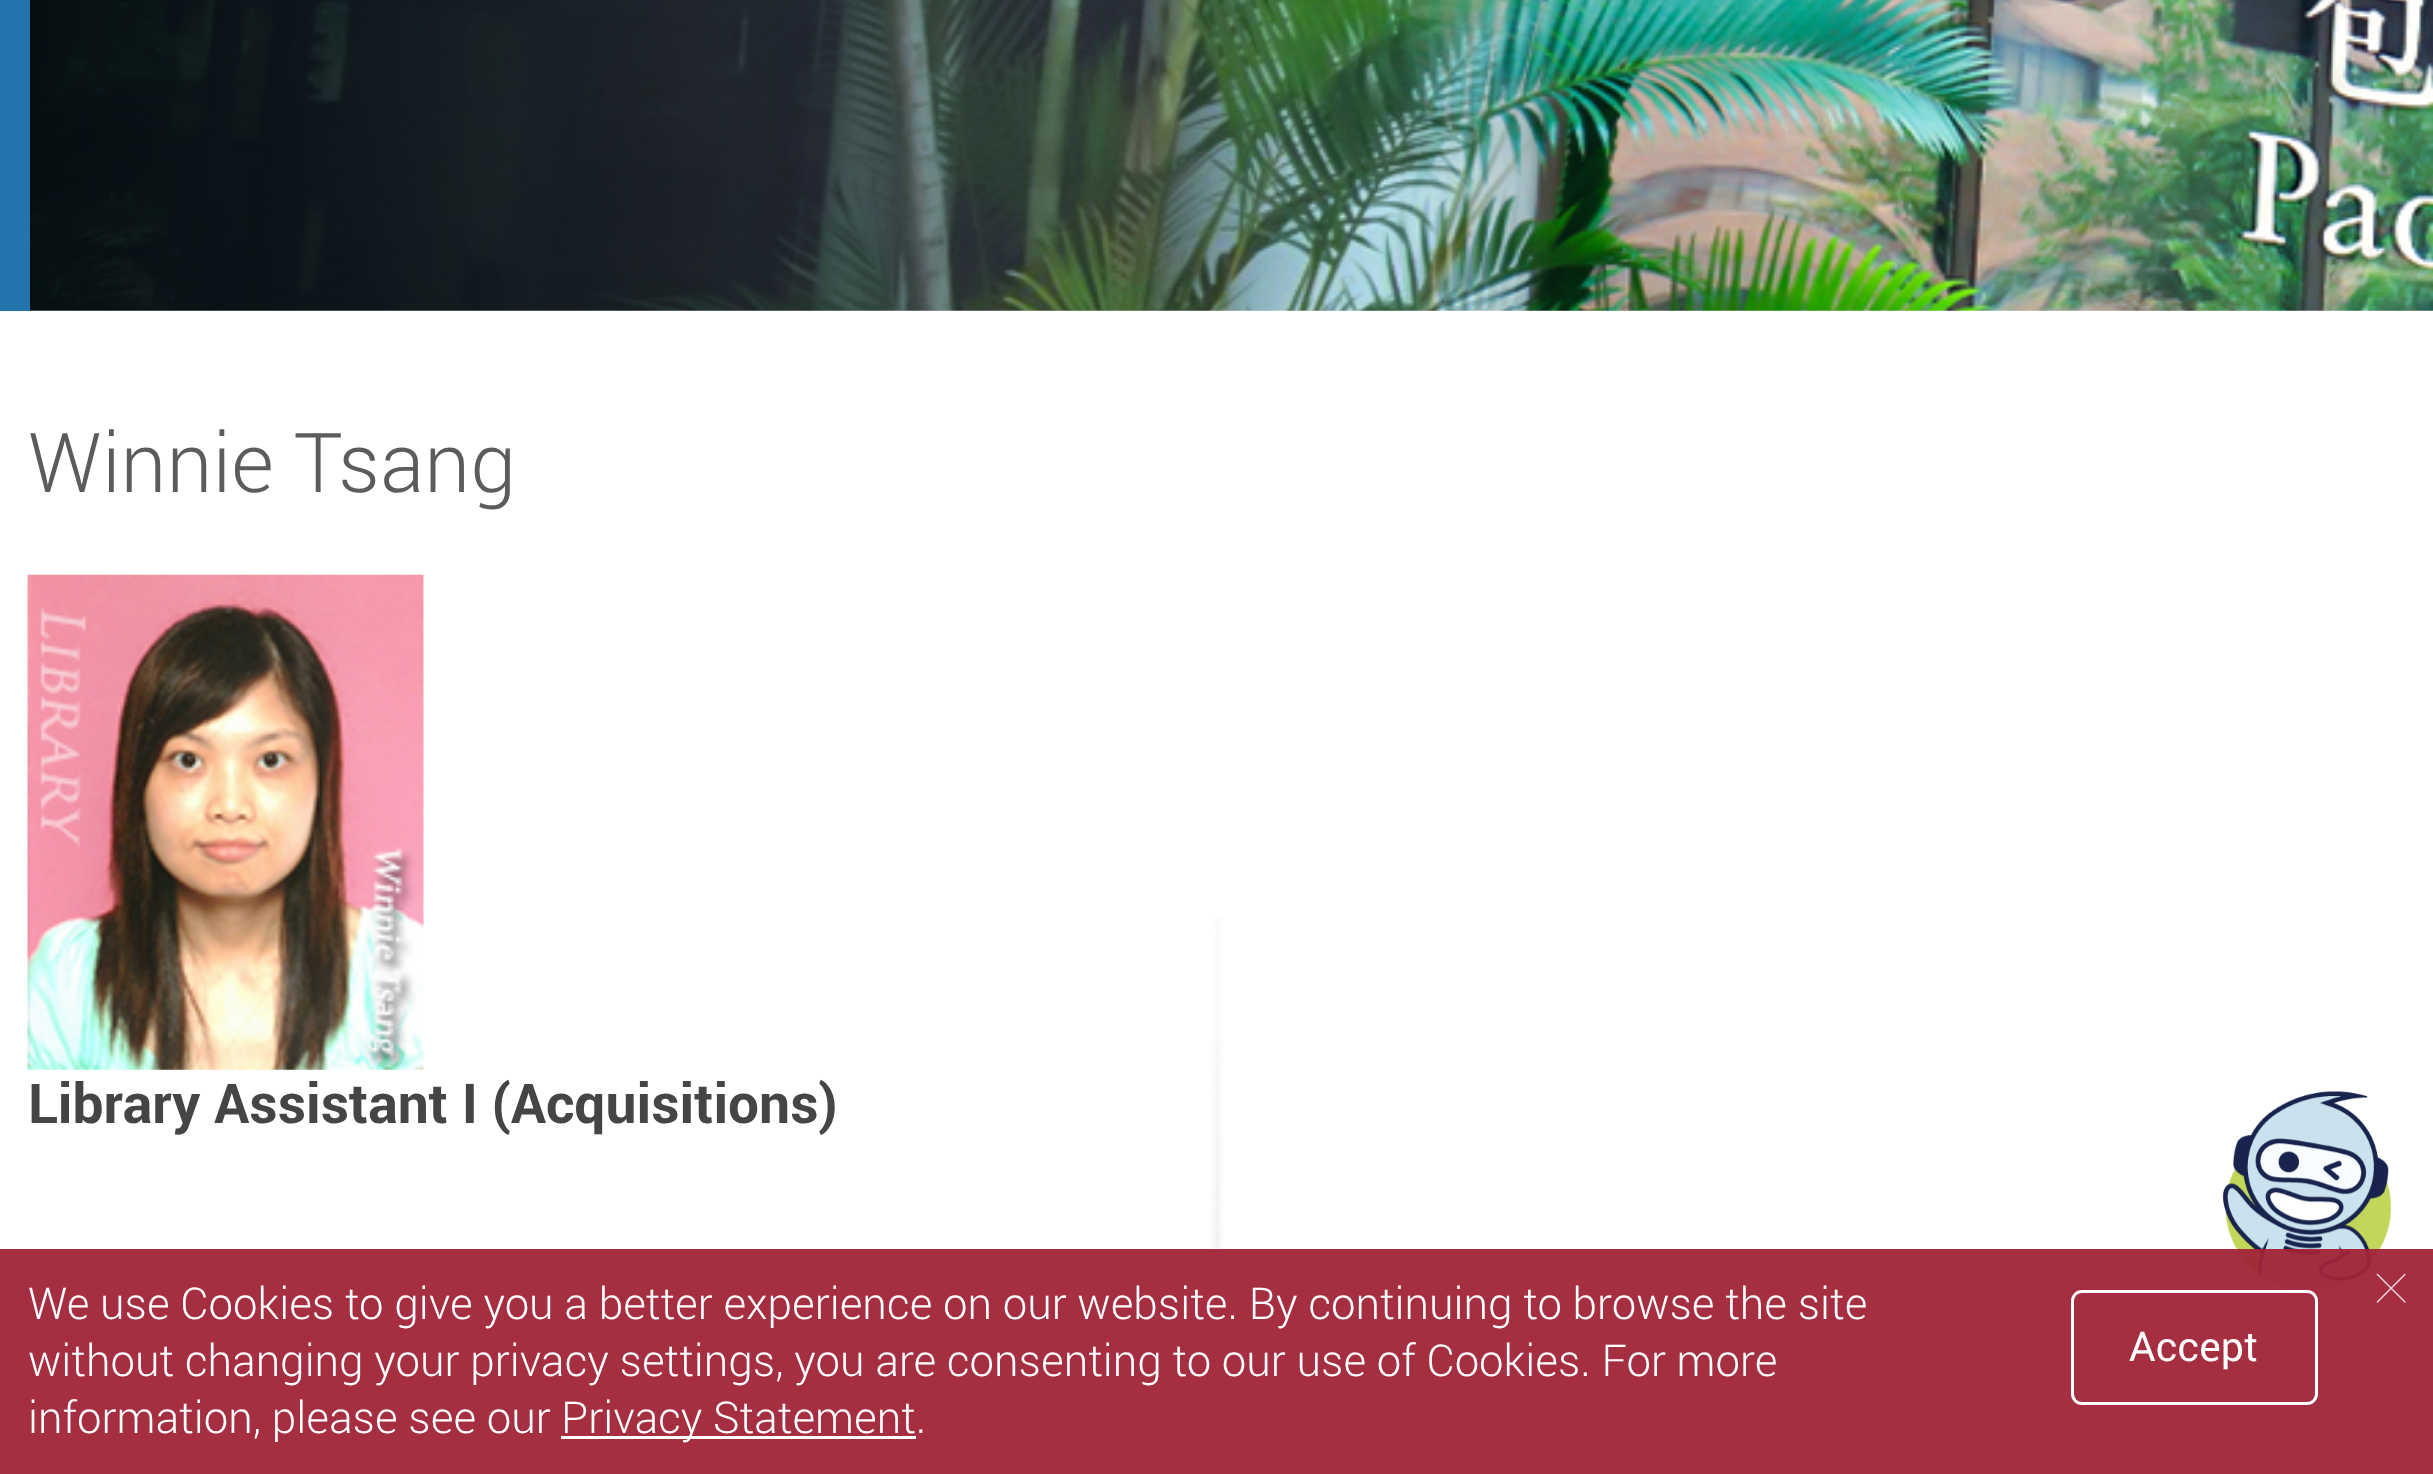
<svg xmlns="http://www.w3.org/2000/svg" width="2433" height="1474">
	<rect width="100%" height="100%" fill="#FFFFFF" />
	<image x="30" y="0" width="2403" height="311" href="assets/img1.png" />
	<rect x="0" y="0" width="30" height="311" fill="#2373AD" />
	<text x="28" y="492" font-family="Roboto" font-size="82.5" font-weight="300" fill="#5C5C5C">Winnie Tsang</text>
	<image x="27" y="574" width="397" height="496" href="assets/img2.png" />
	<text x="28" y="1123" font-family="Roboto" font-size="55" font-weight="700" fill="#454545">Library Assistant I (Acquisitions)</text>
	<image x="1210" y="915" width="14" height="559" href="assets/img3.png" />
	<image x="2222" y="1091" width="170" height="200" href="assets/img4.png" />
	<rect x="0" y="1249" width="2433" height="225" fill="#A02337" fill-opacity="0.95" />
	<g font-family="Roboto" font-size="44" font-weight="300" fill="#FFFFFF">
		<text x="28" y="1319">We use Cookies to give you a better experience on our website. By continuing to browse the site</text>
		<text x="28" y="1376">without changing your privacy settings, you are consenting to our use of Cookies. For more</text>
		<text x="28" y="1433">information, please see our</text>
	</g>
	<rect x="561" y="1436" width="355" height="3" fill="#FFFFFF" />
	<text x="561" y="1433" font-family="Roboto" font-size="44" font-weight="300" fill="#FFFFFF">Privacy Statement.</text>
	<rect x="2072.5" y="1291.5" width="244" height="112" rx="9.5" fill="none" stroke="#FFFFFF" stroke-width="3" />
	<text x="2129" y="1361" font-family="Roboto" font-size="41" fill="#FFFFFF">Accept</text>
	<image x="2376" y="1273" width="30" height="30" href="assets/img5.png" />
</svg>
